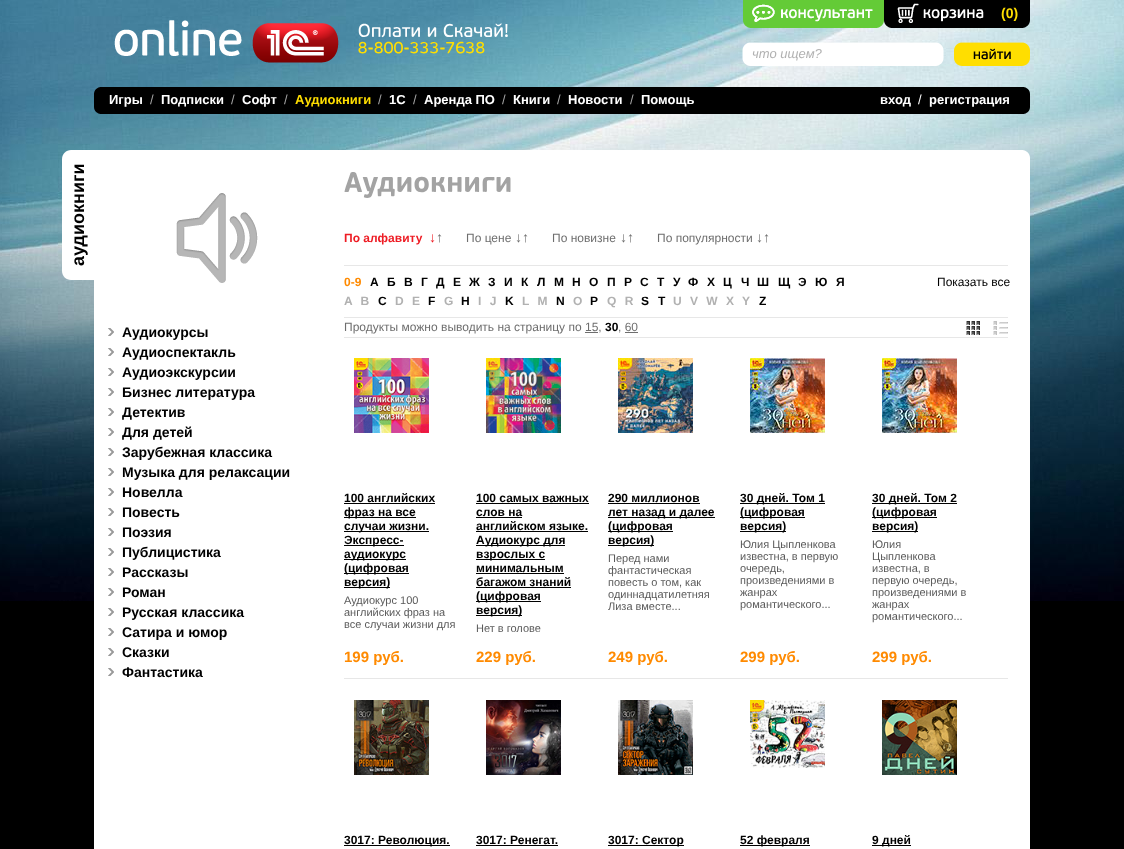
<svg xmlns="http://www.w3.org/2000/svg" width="1124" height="849">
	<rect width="100%" height="100%" fill="#000000" />
	<image x="0" y="0" width="1124" height="601" href="assets/img1.png" />
	<image x="743" y="0" width="141" height="28" href="assets/img2.png" />
	<image x="884" y="0" width="146" height="28" href="assets/img3.png" />
	<text x="1001" y="18" font-family="Liberation Sans" font-size="14" font-weight="700" fill="#FFDE00">(0)</text>
	<image x="114" y="20" width="225" height="43" href="assets/img4.png" />
	<image x="358" y="23" width="62" height="15" href="assets/img5.png" />
	<image x="427" y="27" width="10" height="10" href="assets/img6.png" />
	<image x="443" y="23" width="65" height="14" href="assets/img7.png" />
	<image x="358" y="41" width="127" height="13" href="assets/img8.png" />
	<image x="742" y="42" width="202" height="24" href="assets/img9.png" />
	<text x="752" y="58" font-family="Liberation Sans" font-size="13" font-style="italic" fill="#B1B1B1">что ищем?</text>
	<image x="954" y="42" width="76" height="24" href="assets/img10.png" />
	<image x="94" y="87" width="936" height="27" href="assets/img11.png" />
	<rect x="100" y="87" width="924" height="27" fill="#000000" />
	<text x="109" y="104" font-family="Liberation Sans" font-size="13" font-weight="700" fill="#FFFFFF">Игры</text>
	<text x="150" y="104" font-family="Liberation Sans" font-size="13" fill="#A3A3A3">/</text>
	<text x="161" y="104" font-family="Liberation Sans" font-size="13" font-weight="700" fill="#FFFFFF">Подписки</text>
	<text x="231" y="104" font-family="Liberation Sans" font-size="13" fill="#A3A3A3">/</text>
	<text x="242" y="104" font-family="Liberation Sans" font-size="13" font-weight="700" fill="#FFFFFF">Софт</text>
	<text x="284" y="104" font-family="Liberation Sans" font-size="13" fill="#A3A3A3">/</text>
	<text x="295" y="104" font-family="Liberation Sans" font-size="13" font-weight="700" fill="#FFDE00">Аудиокниги</text>
	<text x="378" y="104" font-family="Liberation Sans" font-size="13" fill="#A3A3A3">/</text>
	<text x="389" y="104" font-family="Liberation Sans" font-size="13" font-weight="700" fill="#FFFFFF">1C</text>
	<text x="413" y="104" font-family="Liberation Sans" font-size="13" fill="#A3A3A3">/</text>
	<text x="424" y="104" font-family="Liberation Sans" font-size="13" font-weight="700" fill="#FFFFFF">Аренда ПО</text>
	<text x="502" y="104" font-family="Liberation Sans" font-size="13" fill="#A3A3A3">/</text>
	<text x="513" y="104" font-family="Liberation Sans" font-size="13" font-weight="700" fill="#FFFFFF">Книги</text>
	<text x="557" y="104" font-family="Liberation Sans" font-size="13" fill="#A3A3A3">/</text>
	<text x="568" y="104" font-family="Liberation Sans" font-size="13" font-weight="700" fill="#FFFFFF">Новости</text>
	<text x="630" y="104" font-family="Liberation Sans" font-size="13" fill="#A3A3A3">/</text>
	<g font-family="Liberation Sans" font-size="13" font-weight="700" fill="#FFFFFF">
		<text x="641" y="104">Помощь</text>
		<text x="880" y="104">вход</text>
	</g>
	<text x="918" y="104" font-family="Liberation Sans" font-size="13" fill="#FFFFFF">/</text>
	<text x="929" y="104" font-family="Liberation Sans" font-size="13" font-weight="700" fill="#FFFFFF">регистрация</text>
	<image x="94" y="150" width="936" height="9" href="assets/img12.png" />
	<path d="M62 271V159C62 154 66 150 71 150H94V280H71C66 280 62 276 62 271Z" fill="#FFFFFF" />
	<text x="84" y="266" transform="rotate(-90 84 266)" font-family="Liberation Sans" font-size="18" font-weight="700" fill="#000000">аудиокниги</text>
	<rect x="94" y="159" width="936" height="690" fill="#FFFFFF" />
	<image x="176" y="193" width="82" height="90" href="assets/img13.png" />
	<image x="108" y="328" width="6" height="8" href="assets/img14.png" />
	<text x="122" y="337" font-family="Liberation Sans" font-size="14" font-weight="700" fill="#000000">Аудиокурсы</text>
	<image x="108" y="348" width="6" height="8" href="assets/img14.png" />
	<text x="122" y="357" font-family="Liberation Sans" font-size="14" font-weight="700" fill="#000000">Аудиоспектакль</text>
	<image x="108" y="368" width="6" height="8" href="assets/img14.png" />
	<text x="122" y="377" font-family="Liberation Sans" font-size="14" font-weight="700" fill="#000000">Аудиоэкскурсии</text>
	<image x="108" y="388" width="6" height="8" href="assets/img14.png" />
	<text x="122" y="397" font-family="Liberation Sans" font-size="14" font-weight="700" fill="#000000">Бизнес литература</text>
	<image x="108" y="408" width="6" height="8" href="assets/img14.png" />
	<text x="122" y="417" font-family="Liberation Sans" font-size="14" font-weight="700" fill="#000000">Детектив</text>
	<image x="108" y="428" width="6" height="8" href="assets/img14.png" />
	<text x="122" y="437" font-family="Liberation Sans" font-size="14" font-weight="700" fill="#000000">Для детей</text>
	<image x="108" y="448" width="6" height="8" href="assets/img14.png" />
	<text x="122" y="457" font-family="Liberation Sans" font-size="14" font-weight="700" fill="#000000">Зарубежная классика</text>
	<image x="108" y="468" width="6" height="8" href="assets/img14.png" />
	<text x="122" y="477" font-family="Liberation Sans" font-size="14" font-weight="700" fill="#000000">Музыка для релаксации</text>
	<image x="108" y="488" width="6" height="8" href="assets/img14.png" />
	<text x="122" y="497" font-family="Liberation Sans" font-size="14" font-weight="700" fill="#000000">Новелла</text>
	<image x="108" y="508" width="6" height="8" href="assets/img14.png" />
	<text x="122" y="517" font-family="Liberation Sans" font-size="14" font-weight="700" fill="#000000">Повесть</text>
	<image x="108" y="528" width="6" height="8" href="assets/img14.png" />
	<text x="122" y="537" font-family="Liberation Sans" font-size="14" font-weight="700" fill="#000000">Поэзия</text>
	<image x="108" y="548" width="6" height="8" href="assets/img14.png" />
	<text x="122" y="557" font-family="Liberation Sans" font-size="14" font-weight="700" fill="#000000">Публицистика</text>
	<image x="108" y="568" width="6" height="8" href="assets/img14.png" />
	<text x="122" y="577" font-family="Liberation Sans" font-size="14" font-weight="700" fill="#000000">Рассказы</text>
	<image x="108" y="588" width="6" height="8" href="assets/img14.png" />
	<text x="122" y="597" font-family="Liberation Sans" font-size="14" font-weight="700" fill="#000000">Роман</text>
	<image x="108" y="608" width="6" height="8" href="assets/img14.png" />
	<text x="122" y="617" font-family="Liberation Sans" font-size="14" font-weight="700" fill="#000000">Русская классика</text>
	<image x="108" y="628" width="6" height="8" href="assets/img14.png" />
	<text x="122" y="637" font-family="Liberation Sans" font-size="14" font-weight="700" fill="#000000">Сатира и юмор</text>
	<image x="108" y="648" width="6" height="8" href="assets/img14.png" />
	<text x="122" y="657" font-family="Liberation Sans" font-size="14" font-weight="700" fill="#000000">Сказки</text>
	<image x="108" y="668" width="6" height="8" href="assets/img14.png" />
	<text x="122" y="677" font-family="Liberation Sans" font-size="14" font-weight="700" fill="#000000">Фантастика</text>
	<image x="344" y="172" width="167" height="26" href="assets/img15.png" />
	<text x="344" y="242" font-family="Liberation Sans" font-size="12" font-weight="700" fill="#EE1C24">По алфавиту</text>
	<text x="429" y="242" font-family="Liberation Sans" font-size="14" font-weight="700" fill="#EE1C24">↓</text>
	<text x="436" y="242" font-family="Liberation Sans" font-size="14" fill="#6E6E6E">↑</text>
	<text x="466" y="242" font-family="Liberation Sans" font-size="12" fill="#6E6E6E">По цене</text>
	<text x="515" y="242" font-family="Liberation Sans" font-size="14" fill="#6E6E6E">↓↑</text>
	<text x="552" y="242" font-family="Liberation Sans" font-size="12" fill="#6E6E6E">По новизне</text>
	<text x="620" y="242" font-family="Liberation Sans" font-size="14" fill="#6E6E6E">↓↑</text>
	<text x="657" y="242" font-family="Liberation Sans" font-size="12" fill="#6E6E6E">По популярности</text>
	<text x="756" y="242" font-family="Liberation Sans" font-size="14" fill="#6E6E6E">↓↑</text>
	<rect x="344" y="265" width="664" height="1" fill="#E7E7E7" />
	<text x="344" y="286" font-family="Liberation Sans" font-size="12" font-weight="700" fill="#FF8A00">0-9</text>
	<g font-family="Liberation Sans" font-size="12" font-weight="700" fill="#000000">
		<text x="370" y="286">А</text>
		<text x="387" y="286">Б</text>
		<text x="404" y="286">В</text>
		<text x="421" y="286">Г</text>
		<text x="436" y="286">Д</text>
		<text x="453" y="286">Е</text>
		<text x="469" y="286">Ж</text>
		<text x="488" y="286">З</text>
		<text x="504" y="286">И</text>
		<text x="521" y="286">К</text>
		<text x="537" y="286">Л</text>
		<text x="554" y="286">М</text>
		<text x="572" y="286">Н</text>
		<text x="589" y="286">О</text>
		<text x="607" y="286">П</text>
		<text x="624" y="286">Р</text>
		<text x="640" y="286">С</text>
		<text x="657" y="286">Т</text>
		<text x="673" y="286">У</text>
		<text x="688" y="286">Ф</text>
		<text x="707" y="286">Х</text>
		<text x="723" y="286">Ц</text>
		<text x="741" y="286">Ч</text>
		<text x="757" y="286">Ш</text>
		<text x="778" y="286">Щ</text>
		<text x="798" y="286">Э</text>
		<text x="815" y="286">Ю</text>
		<text x="836" y="286">Я</text>
	</g>
	<text x="937" y="286" font-family="Liberation Sans" font-size="12" fill="#000000">Показать все</text>
	<text x="344" y="305" word-spacing="5" font-family="Liberation Sans" font-size="12" font-weight="700" fill="#B1B1B1">A B</text>
	<text x="378" y="305" font-family="Liberation Sans" font-size="12" font-weight="700" fill="#000000">C</text>
	<text x="395" y="305" word-spacing="5" font-family="Liberation Sans" font-size="12" font-weight="700" fill="#B1B1B1">D E</text>
	<text x="428" y="305" font-family="Liberation Sans" font-size="12" font-weight="700" fill="#000000">F</text>
	<text x="444" y="305" font-family="Liberation Sans" font-size="12" font-weight="700" fill="#B1B1B1">G</text>
	<text x="461" y="305" font-family="Liberation Sans" font-size="12" font-weight="700" fill="#000000">H</text>
	<text x="478" y="305" word-spacing="5" font-family="Liberation Sans" font-size="12" font-weight="700" fill="#B1B1B1">I J</text>
	<text x="505" y="305" font-family="Liberation Sans" font-size="12" font-weight="700" fill="#000000">K</text>
	<text x="522" y="305" word-spacing="5" font-family="Liberation Sans" font-size="12" font-weight="700" fill="#B1B1B1">L M</text>
	<text x="556" y="305" font-family="Liberation Sans" font-size="12" font-weight="700" fill="#000000">N</text>
	<text x="573" y="305" font-family="Liberation Sans" font-size="12" font-weight="700" fill="#B1B1B1">O</text>
	<text x="590" y="305" font-family="Liberation Sans" font-size="12" font-weight="700" fill="#000000">P</text>
	<text x="607" y="305" word-spacing="5" font-family="Liberation Sans" font-size="12" font-weight="700" fill="#B1B1B1">Q R</text>
	<g font-family="Liberation Sans" font-size="12" font-weight="700" fill="#000000">
		<text x="641" y="305">S</text>
		<text x="658" y="305">T</text>
	</g>
	<text x="673" y="305" word-spacing="5" font-family="Liberation Sans" font-size="12" font-weight="700" fill="#B1B1B1">U V W X Y</text>
	<text x="759" y="305" font-family="Liberation Sans" font-size="12" font-weight="700" fill="#000000">Z</text>
	<rect x="344" y="317" width="664" height="1" fill="#E7E7E7" />
	<rect x="344" y="337" width="664" height="1" fill="#E7E7E7" />
	<text x="344" y="331" font-family="Liberation Sans" font-size="12" fill="#6E6E6E">Продукты можно выводить на страницу по 15,</text>
	<text x="605" y="331" font-family="Liberation Sans" font-size="12" font-weight="700" fill="#000000">30</text>
	<text x="618" y="331" font-family="Liberation Sans" font-size="12" fill="#6E6E6E">, 60</text>
	<image x="966" y="321" width="14" height="14" href="assets/img16.png" />
	<image x="993" y="321" width="15" height="14" href="assets/img17.png" />
	<rect x="585" y="332" width="13" height="1" fill="#6E6E6E" />
	<rect x="625" y="332" width="13" height="1" fill="#6E6E6E" />
	<image x="354" y="358" width="75" height="75" href="assets/img18.png" />
	<text x="344" y="502" font-family="Liberation Sans" font-size="12" font-weight="700" fill="#000000">100 английских</text>
	<rect x="344" y="503" width="91" height="1" fill="#000000" />
	<rect x="344" y="517" width="72" height="1" fill="#000000" />
	<text x="344" y="516" font-family="Liberation Sans" font-size="12" font-weight="700" fill="#000000">фраз на все</text>
	<rect x="344" y="531" width="85" height="1" fill="#000000" />
	<text x="344" y="530" font-family="Liberation Sans" font-size="12" font-weight="700" fill="#000000">случаи жизни.</text>
	<rect x="344" y="545" width="60" height="1" fill="#000000" />
	<text x="344" y="544" font-family="Liberation Sans" font-size="12" font-weight="700" fill="#000000">Экспресс-</text>
	<rect x="344" y="559" width="62" height="1" fill="#000000" />
	<text x="344" y="558" font-family="Liberation Sans" font-size="12" font-weight="700" fill="#000000">аудиокурс</text>
	<rect x="344" y="573" width="65" height="1" fill="#000000" />
	<text x="344" y="572" font-family="Liberation Sans" font-size="12" font-weight="700" fill="#000000">(цифровая</text>
	<rect x="344" y="587" width="46" height="1" fill="#000000" />
	<text x="344" y="586" font-family="Liberation Sans" font-size="12" font-weight="700" fill="#000000">версия)</text>
	<g font-family="Liberation Sans" font-size="11" fill="#5A5A5A">
		<text x="344" y="604">Аудиокурс 100</text>
		<text x="344" y="616">английских фраз на</text>
		<text x="344" y="628">все случаи жизни для</text>
	</g>
	<text x="344" y="662" font-family="Liberation Sans" font-size="15" font-weight="700" fill="#FF8A00">199 руб.</text>
	<image x="486" y="358" width="75" height="75" href="assets/img19.png" />
	<text x="476" y="502" font-family="Liberation Sans" font-size="12" font-weight="700" fill="#000000">100 самых важных</text>
	<rect x="476" y="503" width="113" height="1" fill="#000000" />
	<text x="476" y="516" font-family="Liberation Sans" font-size="12" font-weight="700" fill="#000000">слов на</text>
	<rect x="476" y="517" width="46" height="1" fill="#000000" />
	<text x="476" y="530" font-family="Liberation Sans" font-size="12" font-weight="700" fill="#000000">английском языке.</text>
	<rect x="476" y="531" width="112" height="1" fill="#000000" />
	<rect x="476" y="545" width="89" height="1" fill="#000000" />
	<text x="476" y="544" font-family="Liberation Sans" font-size="12" font-weight="700" fill="#000000">Аудиокурс для</text>
	<rect x="476" y="559" width="69" height="1" fill="#000000" />
	<g font-family="Liberation Sans" font-size="12" font-weight="700" fill="#000000">
		<text x="476" y="558">взрослых с</text>
		<text x="476" y="572">минимальным</text>
	</g>
	<rect x="476" y="573" width="88" height="1" fill="#000000" />
	<text x="476" y="586" font-family="Liberation Sans" font-size="12" font-weight="700" fill="#000000">багажом знаний</text>
	<rect x="476" y="587" width="95" height="1" fill="#000000" />
	<rect x="476" y="601" width="65" height="1" fill="#000000" />
	<text x="476" y="600" font-family="Liberation Sans" font-size="12" font-weight="700" fill="#000000">(цифровая</text>
	<rect x="476" y="615" width="46" height="1" fill="#000000" />
	<text x="476" y="614" font-family="Liberation Sans" font-size="12" font-weight="700" fill="#000000">версия)</text>
	<text x="476" y="632" font-family="Liberation Sans" font-size="11" fill="#5A5A5A">Нет в голове</text>
	<text x="476" y="662" font-family="Liberation Sans" font-size="15" font-weight="700" fill="#FF8A00">229 руб.</text>
	<image x="618" y="358" width="75" height="75" href="assets/img20.png" />
	<text x="608" y="502" font-family="Liberation Sans" font-size="12" font-weight="700" fill="#000000">290 миллионов</text>
	<rect x="608" y="503" width="92" height="1" fill="#000000" />
	<rect x="608" y="517" width="107" height="1" fill="#000000" />
	<text x="608" y="516" font-family="Liberation Sans" font-size="12" font-weight="700" fill="#000000">лет назад и далее</text>
	<rect x="608" y="531" width="65" height="1" fill="#000000" />
	<text x="608" y="530" font-family="Liberation Sans" font-size="12" font-weight="700" fill="#000000">(цифровая</text>
	<rect x="608" y="545" width="46" height="1" fill="#000000" />
	<text x="608" y="544" font-family="Liberation Sans" font-size="12" font-weight="700" fill="#000000">версия)</text>
	<g font-family="Liberation Sans" font-size="11" fill="#5A5A5A">
		<text x="608" y="562">Перед нами</text>
		<text x="608" y="574">фантастическая</text>
		<text x="608" y="586">повесть о том, как</text>
		<text x="608" y="598">одиннадцатилетняя</text>
		<text x="608" y="610">Лиза вместе...</text>
	</g>
	<text x="608" y="662" font-family="Liberation Sans" font-size="15" font-weight="700" fill="#FF8A00">249 руб.</text>
	<image x="750" y="358" width="75" height="75" href="assets/img21.png" />
	<rect x="740" y="503" width="85" height="1" fill="#000000" />
	<text x="740" y="502" font-family="Liberation Sans" font-size="12" font-weight="700" fill="#000000">30 дней. Том 1</text>
	<rect x="740" y="517" width="65" height="1" fill="#000000" />
	<text x="740" y="516" font-family="Liberation Sans" font-size="12" font-weight="700" fill="#000000">(цифровая</text>
	<rect x="740" y="531" width="46" height="1" fill="#000000" />
	<text x="740" y="530" font-family="Liberation Sans" font-size="12" font-weight="700" fill="#000000">версия)</text>
	<g font-family="Liberation Sans" font-size="11" fill="#5A5A5A">
		<text x="740" y="548">Юлия Цыпленкова</text>
		<text x="740" y="560">известна, в первую</text>
		<text x="740" y="572">очередь,</text>
		<text x="740" y="584">произведениями в</text>
		<text x="740" y="596">жанрах</text>
		<text x="740" y="608">романтического...</text>
	</g>
	<text x="740" y="662" font-family="Liberation Sans" font-size="15" font-weight="700" fill="#FF8A00">299 руб.</text>
	<image x="882" y="358" width="75" height="75" href="assets/img22.png" />
	<rect x="872" y="503" width="85" height="1" fill="#000000" />
	<text x="872" y="502" font-family="Liberation Sans" font-size="12" font-weight="700" fill="#000000">30 дней. Том 2</text>
	<rect x="872" y="517" width="65" height="1" fill="#000000" />
	<text x="872" y="516" font-family="Liberation Sans" font-size="12" font-weight="700" fill="#000000">(цифровая</text>
	<rect x="872" y="531" width="46" height="1" fill="#000000" />
	<text x="872" y="530" font-family="Liberation Sans" font-size="12" font-weight="700" fill="#000000">версия)</text>
	<g font-family="Liberation Sans" font-size="11" fill="#5A5A5A">
		<text x="872" y="548">Юлия</text>
		<text x="872" y="560">Цыпленкова</text>
		<text x="872" y="572">известна, в</text>
		<text x="872" y="584">первую очередь,</text>
		<text x="872" y="596">произведениями в</text>
		<text x="872" y="608">жанрах</text>
		<text x="872" y="620">романтического...</text>
	</g>
	<text x="872" y="662" font-family="Liberation Sans" font-size="15" font-weight="700" fill="#FF8A00">299 руб.</text>
	<rect x="344" y="678" width="664" height="1" fill="#E7E7E7" />
	<image x="354" y="700" width="75" height="75" href="assets/img23.png" />
	<rect x="344" y="845" width="106" height="1" fill="#000000" />
	<text x="344" y="844" font-family="Liberation Sans" font-size="12" font-weight="700" fill="#000000">3017: Революция.</text>
	<image x="486" y="700" width="75" height="75" href="assets/img24.png" />
	<text x="476" y="844" font-family="Liberation Sans" font-size="12" font-weight="700" fill="#000000">3017: Ренегат.</text>
	<rect x="476" y="845" width="82" height="1" fill="#000000" />
	<image x="618" y="700" width="75" height="75" href="assets/img25.png" />
	<rect x="608" y="845" width="76" height="1" fill="#000000" />
	<text x="608" y="844" font-family="Liberation Sans" font-size="12" font-weight="700" fill="#000000">3017: Сектор</text>
	<image x="750" y="700" width="75" height="68" href="assets/img26.png" />
	<rect x="740" y="845" width="70" height="1" fill="#000000" />
	<text x="740" y="844" font-family="Liberation Sans" font-size="12" font-weight="700" fill="#000000">52 февраля</text>
	<image x="882" y="700" width="75" height="75" href="assets/img27.png" />
	<rect x="872" y="845" width="39" height="1" fill="#000000" />
	<text x="872" y="844" font-family="Liberation Sans" font-size="12" font-weight="700" fill="#000000">9 дней</text>
</svg>
